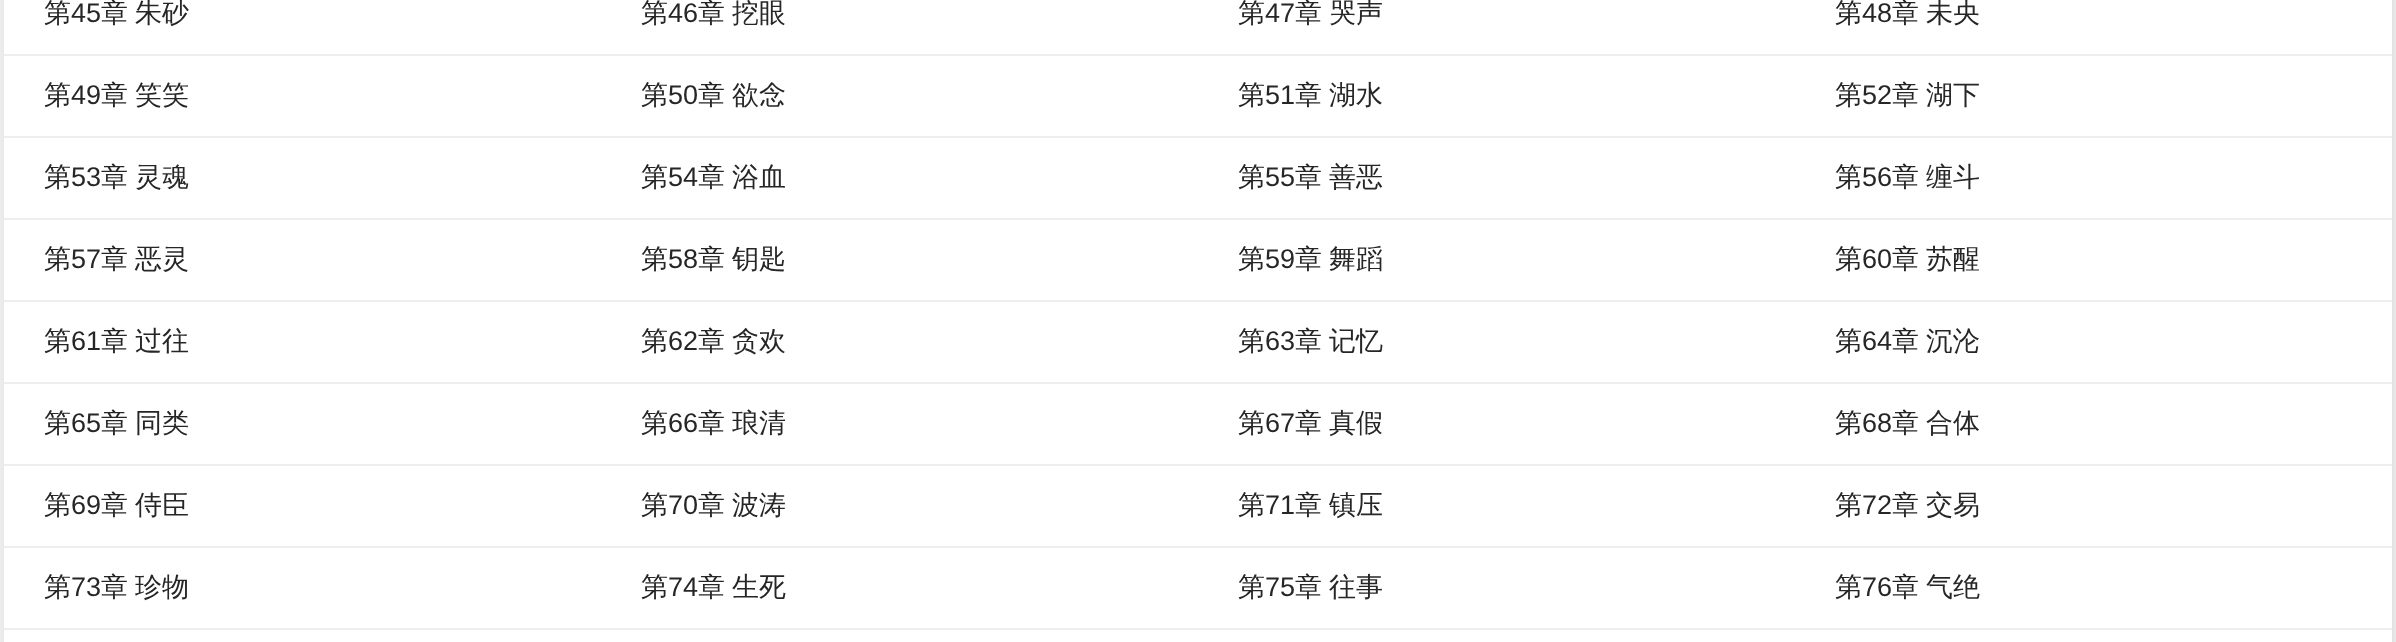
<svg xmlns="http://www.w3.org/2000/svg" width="2396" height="642">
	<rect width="100%" height="100%" fill="#EDEDED" />
	<rect x="6" y="-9" width="2388" height="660" fill="#DDDDDD" filter="blur(3px)" />
	<rect x="4" y="0" width="2388" height="642" fill="#FFFFFF" />
	<rect x="4" y="54" width="2388" height="2" fill="#EEEEEE" />
	<text x="44" y="22" font-family="WenQuanYi Zen Hei" font-size="27" font-weight="500" fill="#262626">第</text>
	<text x="71" y="22" font-family="Liberation Sans" font-size="27" fill="#262626">45</text>
	<g font-family="WenQuanYi Zen Hei" font-size="27" font-weight="500" fill="#262626">
		<text x="101" y="22" word-spacing="-1">章 朱砂</text>
		<text x="641" y="22">第</text>
	</g>
	<text x="668" y="22" font-family="Liberation Sans" font-size="27" fill="#262626">46</text>
	<g font-family="WenQuanYi Zen Hei" font-size="27" font-weight="500" fill="#262626">
		<text x="698" y="22" word-spacing="-1">章 挖眼</text>
		<text x="1238" y="22">第</text>
	</g>
	<text x="1265" y="22" font-family="Liberation Sans" font-size="27" fill="#262626">47</text>
	<g font-family="WenQuanYi Zen Hei" font-size="27" font-weight="500" fill="#262626">
		<text x="1295" y="22" word-spacing="-1">章 哭声</text>
		<text x="1835" y="22">第</text>
	</g>
	<text x="1862" y="22" font-family="Liberation Sans" font-size="27" fill="#262626">48</text>
	<text x="1892" y="22" word-spacing="-1" font-family="WenQuanYi Zen Hei" font-size="27" font-weight="500" fill="#262626">章 未央</text>
	<rect x="4" y="136" width="2388" height="2" fill="#EEEEEE" />
	<text x="44" y="104" font-family="WenQuanYi Zen Hei" font-size="27" font-weight="500" fill="#262626">第</text>
	<text x="71" y="104" font-family="Liberation Sans" font-size="27" fill="#262626">49</text>
	<g font-family="WenQuanYi Zen Hei" font-size="27" font-weight="500" fill="#262626">
		<text x="101" y="104" word-spacing="-1">章 笑笑</text>
		<text x="641" y="104">第</text>
	</g>
	<text x="668" y="104" font-family="Liberation Sans" font-size="27" fill="#262626">50</text>
	<g font-family="WenQuanYi Zen Hei" font-size="27" font-weight="500" fill="#262626">
		<text x="698" y="104" word-spacing="-1">章 欲念</text>
		<text x="1238" y="104">第</text>
	</g>
	<text x="1265" y="104" font-family="Liberation Sans" font-size="27" fill="#262626">51</text>
	<g font-family="WenQuanYi Zen Hei" font-size="27" font-weight="500" fill="#262626">
		<text x="1295" y="104" word-spacing="-1">章 湖水</text>
		<text x="1835" y="104">第</text>
	</g>
	<text x="1862" y="104" font-family="Liberation Sans" font-size="27" fill="#262626">52</text>
	<text x="1892" y="104" word-spacing="-1" font-family="WenQuanYi Zen Hei" font-size="27" font-weight="500" fill="#262626">章 湖下</text>
	<rect x="4" y="218" width="2388" height="2" fill="#EEEEEE" />
	<text x="44" y="186" font-family="WenQuanYi Zen Hei" font-size="27" font-weight="500" fill="#262626">第</text>
	<text x="71" y="186" font-family="Liberation Sans" font-size="27" fill="#262626">53</text>
	<g font-family="WenQuanYi Zen Hei" font-size="27" font-weight="500" fill="#262626">
		<text x="101" y="186" word-spacing="-1">章 灵魂</text>
		<text x="641" y="186">第</text>
	</g>
	<text x="668" y="186" font-family="Liberation Sans" font-size="27" fill="#262626">54</text>
	<g font-family="WenQuanYi Zen Hei" font-size="27" font-weight="500" fill="#262626">
		<text x="698" y="186" word-spacing="-1">章 浴血</text>
		<text x="1238" y="186">第</text>
	</g>
	<text x="1265" y="186" font-family="Liberation Sans" font-size="27" fill="#262626">55</text>
	<g font-family="WenQuanYi Zen Hei" font-size="27" font-weight="500" fill="#262626">
		<text x="1295" y="186" word-spacing="-1">章 善恶</text>
		<text x="1835" y="186">第</text>
	</g>
	<text x="1862" y="186" font-family="Liberation Sans" font-size="27" fill="#262626">56</text>
	<text x="1892" y="186" word-spacing="-1" font-family="WenQuanYi Zen Hei" font-size="27" font-weight="500" fill="#262626">章 缠斗</text>
	<rect x="4" y="300" width="2388" height="2" fill="#EEEEEE" />
	<text x="44" y="268" font-family="WenQuanYi Zen Hei" font-size="27" font-weight="500" fill="#262626">第</text>
	<text x="71" y="268" font-family="Liberation Sans" font-size="27" fill="#262626">57</text>
	<g font-family="WenQuanYi Zen Hei" font-size="27" font-weight="500" fill="#262626">
		<text x="101" y="268" word-spacing="-1">章 恶灵</text>
		<text x="641" y="268">第</text>
	</g>
	<text x="668" y="268" font-family="Liberation Sans" font-size="27" fill="#262626">58</text>
	<g font-family="WenQuanYi Zen Hei" font-size="27" font-weight="500" fill="#262626">
		<text x="698" y="268" word-spacing="-1">章 钥匙</text>
		<text x="1238" y="268">第</text>
	</g>
	<text x="1265" y="268" font-family="Liberation Sans" font-size="27" fill="#262626">59</text>
	<g font-family="WenQuanYi Zen Hei" font-size="27" font-weight="500" fill="#262626">
		<text x="1295" y="268" word-spacing="-1">章 舞蹈</text>
		<text x="1835" y="268">第</text>
	</g>
	<text x="1862" y="268" font-family="Liberation Sans" font-size="27" fill="#262626">60</text>
	<text x="1892" y="268" word-spacing="-1" font-family="WenQuanYi Zen Hei" font-size="27" font-weight="500" fill="#262626">章 苏醒</text>
	<rect x="4" y="382" width="2388" height="2" fill="#EEEEEE" />
	<text x="44" y="350" font-family="WenQuanYi Zen Hei" font-size="27" font-weight="500" fill="#262626">第</text>
	<text x="71" y="350" font-family="Liberation Sans" font-size="27" fill="#262626">61</text>
	<g font-family="WenQuanYi Zen Hei" font-size="27" font-weight="500" fill="#262626">
		<text x="101" y="350" word-spacing="-1">章 过往</text>
		<text x="641" y="350">第</text>
	</g>
	<text x="668" y="350" font-family="Liberation Sans" font-size="27" fill="#262626">62</text>
	<g font-family="WenQuanYi Zen Hei" font-size="27" font-weight="500" fill="#262626">
		<text x="698" y="350" word-spacing="-1">章 贪欢</text>
		<text x="1238" y="350">第</text>
	</g>
	<text x="1265" y="350" font-family="Liberation Sans" font-size="27" fill="#262626">63</text>
	<g font-family="WenQuanYi Zen Hei" font-size="27" font-weight="500" fill="#262626">
		<text x="1295" y="350" word-spacing="-1">章 记忆</text>
		<text x="1835" y="350">第</text>
	</g>
	<text x="1862" y="350" font-family="Liberation Sans" font-size="27" fill="#262626">64</text>
	<text x="1892" y="350" word-spacing="-1" font-family="WenQuanYi Zen Hei" font-size="27" font-weight="500" fill="#262626">章 沉沦</text>
	<rect x="4" y="464" width="2388" height="2" fill="#EEEEEE" />
	<text x="44" y="432" font-family="WenQuanYi Zen Hei" font-size="27" font-weight="500" fill="#262626">第</text>
	<text x="71" y="432" font-family="Liberation Sans" font-size="27" fill="#262626">65</text>
	<g font-family="WenQuanYi Zen Hei" font-size="27" font-weight="500" fill="#262626">
		<text x="101" y="432" word-spacing="-1">章 同类</text>
		<text x="641" y="432">第</text>
	</g>
	<text x="668" y="432" font-family="Liberation Sans" font-size="27" fill="#262626">66</text>
	<g font-family="WenQuanYi Zen Hei" font-size="27" font-weight="500" fill="#262626">
		<text x="698" y="432" word-spacing="-1">章 琅清</text>
		<text x="1238" y="432">第</text>
	</g>
	<text x="1265" y="432" font-family="Liberation Sans" font-size="27" fill="#262626">67</text>
	<g font-family="WenQuanYi Zen Hei" font-size="27" font-weight="500" fill="#262626">
		<text x="1295" y="432" word-spacing="-1">章 真假</text>
		<text x="1835" y="432">第</text>
	</g>
	<text x="1862" y="432" font-family="Liberation Sans" font-size="27" fill="#262626">68</text>
	<text x="1892" y="432" word-spacing="-1" font-family="WenQuanYi Zen Hei" font-size="27" font-weight="500" fill="#262626">章 合体</text>
	<rect x="4" y="546" width="2388" height="2" fill="#EEEEEE" />
	<text x="44" y="514" font-family="WenQuanYi Zen Hei" font-size="27" font-weight="500" fill="#262626">第</text>
	<text x="71" y="514" font-family="Liberation Sans" font-size="27" fill="#262626">69</text>
	<g font-family="WenQuanYi Zen Hei" font-size="27" font-weight="500" fill="#262626">
		<text x="101" y="514" word-spacing="-1">章 侍臣</text>
		<text x="641" y="514">第</text>
	</g>
	<text x="668" y="514" font-family="Liberation Sans" font-size="27" fill="#262626">70</text>
	<g font-family="WenQuanYi Zen Hei" font-size="27" font-weight="500" fill="#262626">
		<text x="698" y="514" word-spacing="-1">章 波涛</text>
		<text x="1238" y="514">第</text>
	</g>
	<text x="1265" y="514" font-family="Liberation Sans" font-size="27" fill="#262626">71</text>
	<g font-family="WenQuanYi Zen Hei" font-size="27" font-weight="500" fill="#262626">
		<text x="1295" y="514" word-spacing="-1">章 镇压</text>
		<text x="1835" y="514">第</text>
	</g>
	<text x="1862" y="514" font-family="Liberation Sans" font-size="27" fill="#262626">72</text>
	<text x="1892" y="514" word-spacing="-1" font-family="WenQuanYi Zen Hei" font-size="27" font-weight="500" fill="#262626">章 交易</text>
	<rect x="4" y="628" width="2388" height="2" fill="#EEEEEE" />
	<text x="44" y="596" font-family="WenQuanYi Zen Hei" font-size="27" font-weight="500" fill="#262626">第</text>
	<text x="71" y="596" font-family="Liberation Sans" font-size="27" fill="#262626">73</text>
	<g font-family="WenQuanYi Zen Hei" font-size="27" font-weight="500" fill="#262626">
		<text x="101" y="596" word-spacing="-1">章 珍物</text>
		<text x="641" y="596">第</text>
	</g>
	<text x="668" y="596" font-family="Liberation Sans" font-size="27" fill="#262626">74</text>
	<g font-family="WenQuanYi Zen Hei" font-size="27" font-weight="500" fill="#262626">
		<text x="698" y="596" word-spacing="-1">章 生死</text>
		<text x="1238" y="596">第</text>
	</g>
	<text x="1265" y="596" font-family="Liberation Sans" font-size="27" fill="#262626">75</text>
	<g font-family="WenQuanYi Zen Hei" font-size="27" font-weight="500" fill="#262626">
		<text x="1295" y="596" word-spacing="-1">章 往事</text>
		<text x="1835" y="596">第</text>
	</g>
	<text x="1862" y="596" font-family="Liberation Sans" font-size="27" fill="#262626">76</text>
	<text x="1892" y="596" word-spacing="-1" font-family="WenQuanYi Zen Hei" font-size="27" font-weight="500" fill="#262626">章 气绝</text>
</svg>
